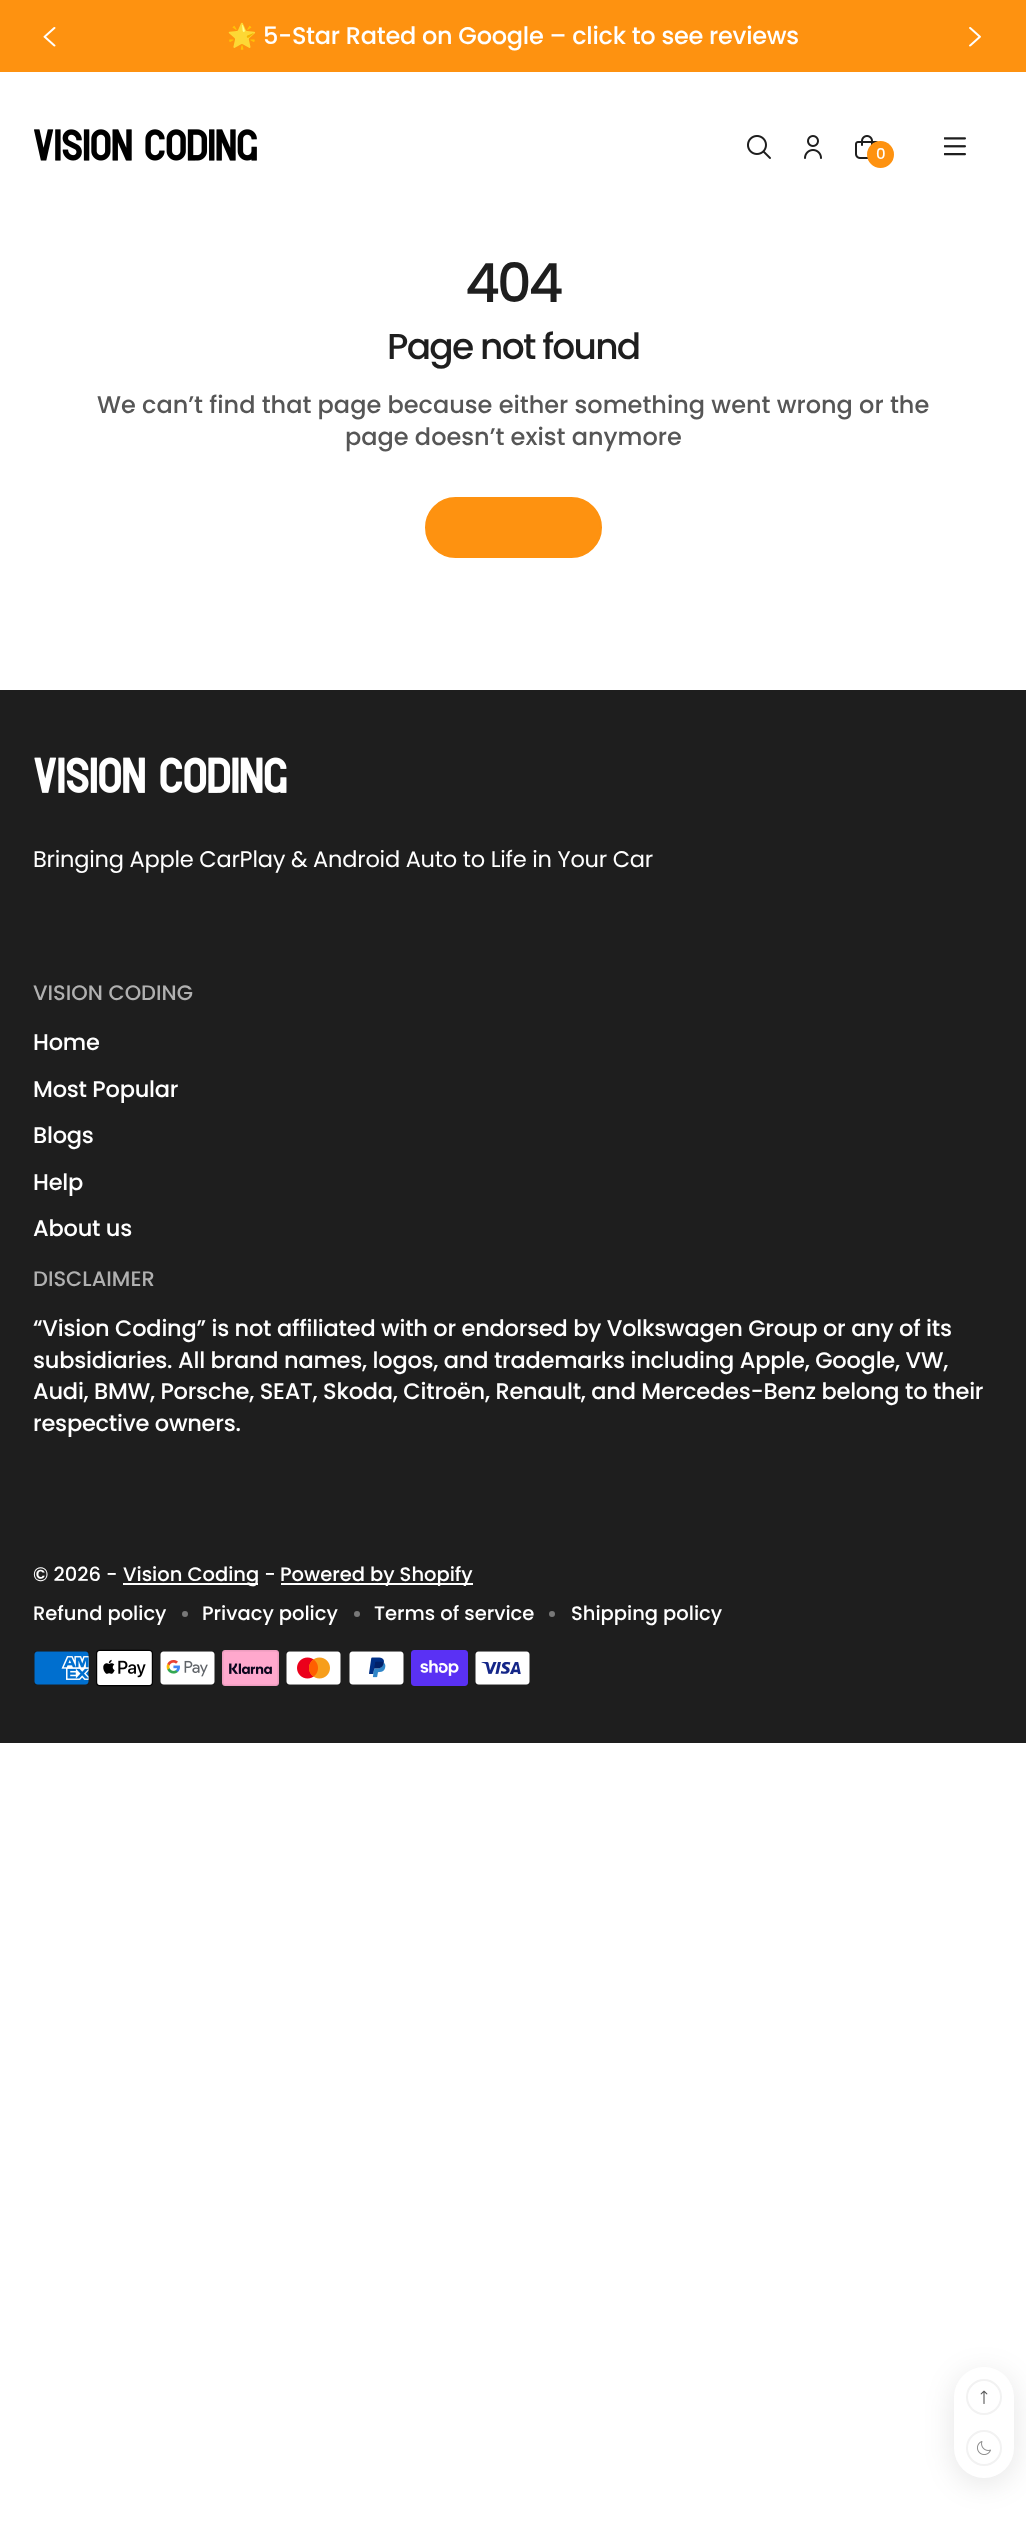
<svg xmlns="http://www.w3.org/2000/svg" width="1026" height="2528">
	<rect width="100%" height="100%" fill="#FFFFFF" />
	<rect x="0" y="0" width="1026" height="72" fill="#FE9210" />
	<image x="43" y="27" width="13" height="20" href="assets/img1.png" />
	<text x="227" y="44" font-family="Noto Color Emoji" font-size="24" letter-spacing="-0.25" fill="#FFFFFF">🌟</text>
	<text x="263" y="44" font-family="Poppins" font-size="24" font-weight="500" letter-spacing="-0.25" fill="#FFFFFF">5-Star Rated on Google – click to see reviews</text>
	<image x="969" y="27" width="12" height="20" href="assets/img2.png" />
	<image x="34" y="129" width="223" height="32" href="assets/img3.png" />
	<image x="747" y="135" width="24" height="24" href="assets/img4.png" />
	<image x="804" y="135" width="18" height="24" href="assets/img5.png" />
	<image x="855" y="135" width="24" height="24" href="assets/img6.png" />
	<circle cx="880.5" cy="154.5" r="13.5" fill="#FE9210" />
	<text x="876" y="159" font-family="Poppins" font-size="15" font-weight="500" fill="#FFFFFF">0</text>
	<image x="944" y="137" width="22" height="19" href="assets/img7.png" />
	<text x="465" y="302" font-family="Poppins" font-size="54" font-weight="500" letter-spacing="-3" fill="#1E1E1E">404</text>
	<text x="387" y="359" font-family="Poppins" font-size="36" font-weight="500" letter-spacing="-1.75" fill="#1E1E1E">Page not found</text>
	<g font-family="Poppins" font-size="24" font-weight="500" fill="#565656">
		<text x="97" y="413">We can’t find that page because either something went wrong or the</text>
		<text x="345" y="445">page doesn’t exist anymore</text>
	</g>
	<rect x="426" y="498" width="175" height="59" rx="29.5" fill="#FE9210" stroke="#FE9210" stroke-width="2" />
	<rect x="0" y="690" width="1026" height="1053" fill="#1E1E1E" />
	<image x="34" y="757" width="253" height="36" href="assets/img8.png" />
	<text x="33" y="867" font-family="Poppins" font-size="22.5" letter-spacing="-0.22" fill="#FFFFFF">Bringing Apple CarPlay &amp; Android Auto to Life in Your Car</text>
	<text x="33" y="1000" font-family="Poppins" font-size="21" font-weight="500" fill="#B0B0B0">VISION CODING</text>
	<g font-family="Poppins" font-size="22.5" font-weight="500" letter-spacing="-0.22" fill="#FFFFFF">
		<text x="33" y="1050">Home</text>
		<text x="33" y="1097">Most Popular</text>
		<text x="33" y="1143">Blogs</text>
		<text x="33" y="1190">Help</text>
		<text x="33" y="1236">About us</text>
	</g>
	<text x="33" y="1286" font-family="Poppins" font-size="21" font-weight="500" fill="#B0B0B0">DISCLAIMER</text>
	<g font-family="Poppins" font-size="22.5" font-weight="500" letter-spacing="-0.22" fill="#FFFFFF">
		<text x="33" y="1336">“Vision Coding” is not affiliated with or endorsed by Volkswagen Group or any of its</text>
		<text x="33" y="1368">subsidiaries. All brand names, logos, and trademarks including Apple, Google, VW,</text>
		<text x="33" y="1399">Audi, BMW, Porsche, SEAT, Skoda, Citroën, Renault, and Mercedes-Benz belong to their</text>
		<text x="33" y="1431">respective owners.</text>
	</g>
	<text x="33" y="1581" font-family="Poppins" font-size="19.5" font-weight="500" fill="#FFFFFF">© 2026 -</text>
	<rect x="123" y="1583" width="135" height="2" fill="#FFFFFF" />
	<text x="123" y="1581" font-family="Poppins" font-size="19.5" font-weight="500" fill="#FFFFFF">Vision Coding -</text>
	<rect x="281" y="1583" width="192" height="2" fill="#FFFFFF" />
	<g font-family="Poppins" font-size="19.5" font-weight="500" fill="#FFFFFF">
		<text x="280" y="1581">Powered by Shopify</text>
		<text x="33" y="1620">Refund policy</text>
	</g>
	<circle cx="185" cy="1614" r="3" fill="#787878" />
	<text x="202" y="1620" font-family="Poppins" font-size="19.5" font-weight="500" fill="#FFFFFF">Privacy policy</text>
	<circle cx="357" cy="1614" r="3" fill="#787878" />
	<text x="374" y="1620" font-family="Poppins" font-size="19.5" font-weight="500" fill="#FFFFFF">Terms of service</text>
	<circle cx="552" cy="1614" r="3" fill="#787878" />
	<text x="571" y="1620" font-family="Poppins" font-size="19.5" font-weight="500" fill="#FFFFFF">Shipping policy</text>
	<image x="34" y="1651" width="55" height="34" href="assets/img9.png" />
	<image x="96" y="1649" width="57" height="38" href="assets/img10.png" />
	<image x="160" y="1651" width="55" height="34" href="assets/img11.png" />
	<image x="222" y="1650" width="57" height="36" href="assets/img12.png" />
	<image x="286" y="1651" width="55" height="34" href="assets/img13.png" />
	<image x="349" y="1651" width="55" height="34" href="assets/img14.png" />
	<image x="411" y="1650" width="57" height="36" href="assets/img15.png" />
	<image x="475" y="1651" width="55" height="34" href="assets/img16.png" />
	<rect x="954" y="2373" width="60" height="111" rx="30" fill="#000000" fill-opacity="0.1" filter="blur(15px)" />
	<rect x="954" y="2367" width="60" height="111" rx="30" fill="#FFFFFF" />
	<circle cx="984" cy="2397" r="17" fill="none" stroke="#F2F2F2" stroke-width="2" />
	<image x="980" y="2390" width="8" height="14" href="assets/img17.png" />
	<circle cx="984" cy="2448" r="17" fill="none" stroke="#F2F2F2" stroke-width="2" />
	<image x="977" y="2441" width="14" height="14" href="assets/img18.png" />
</svg>
